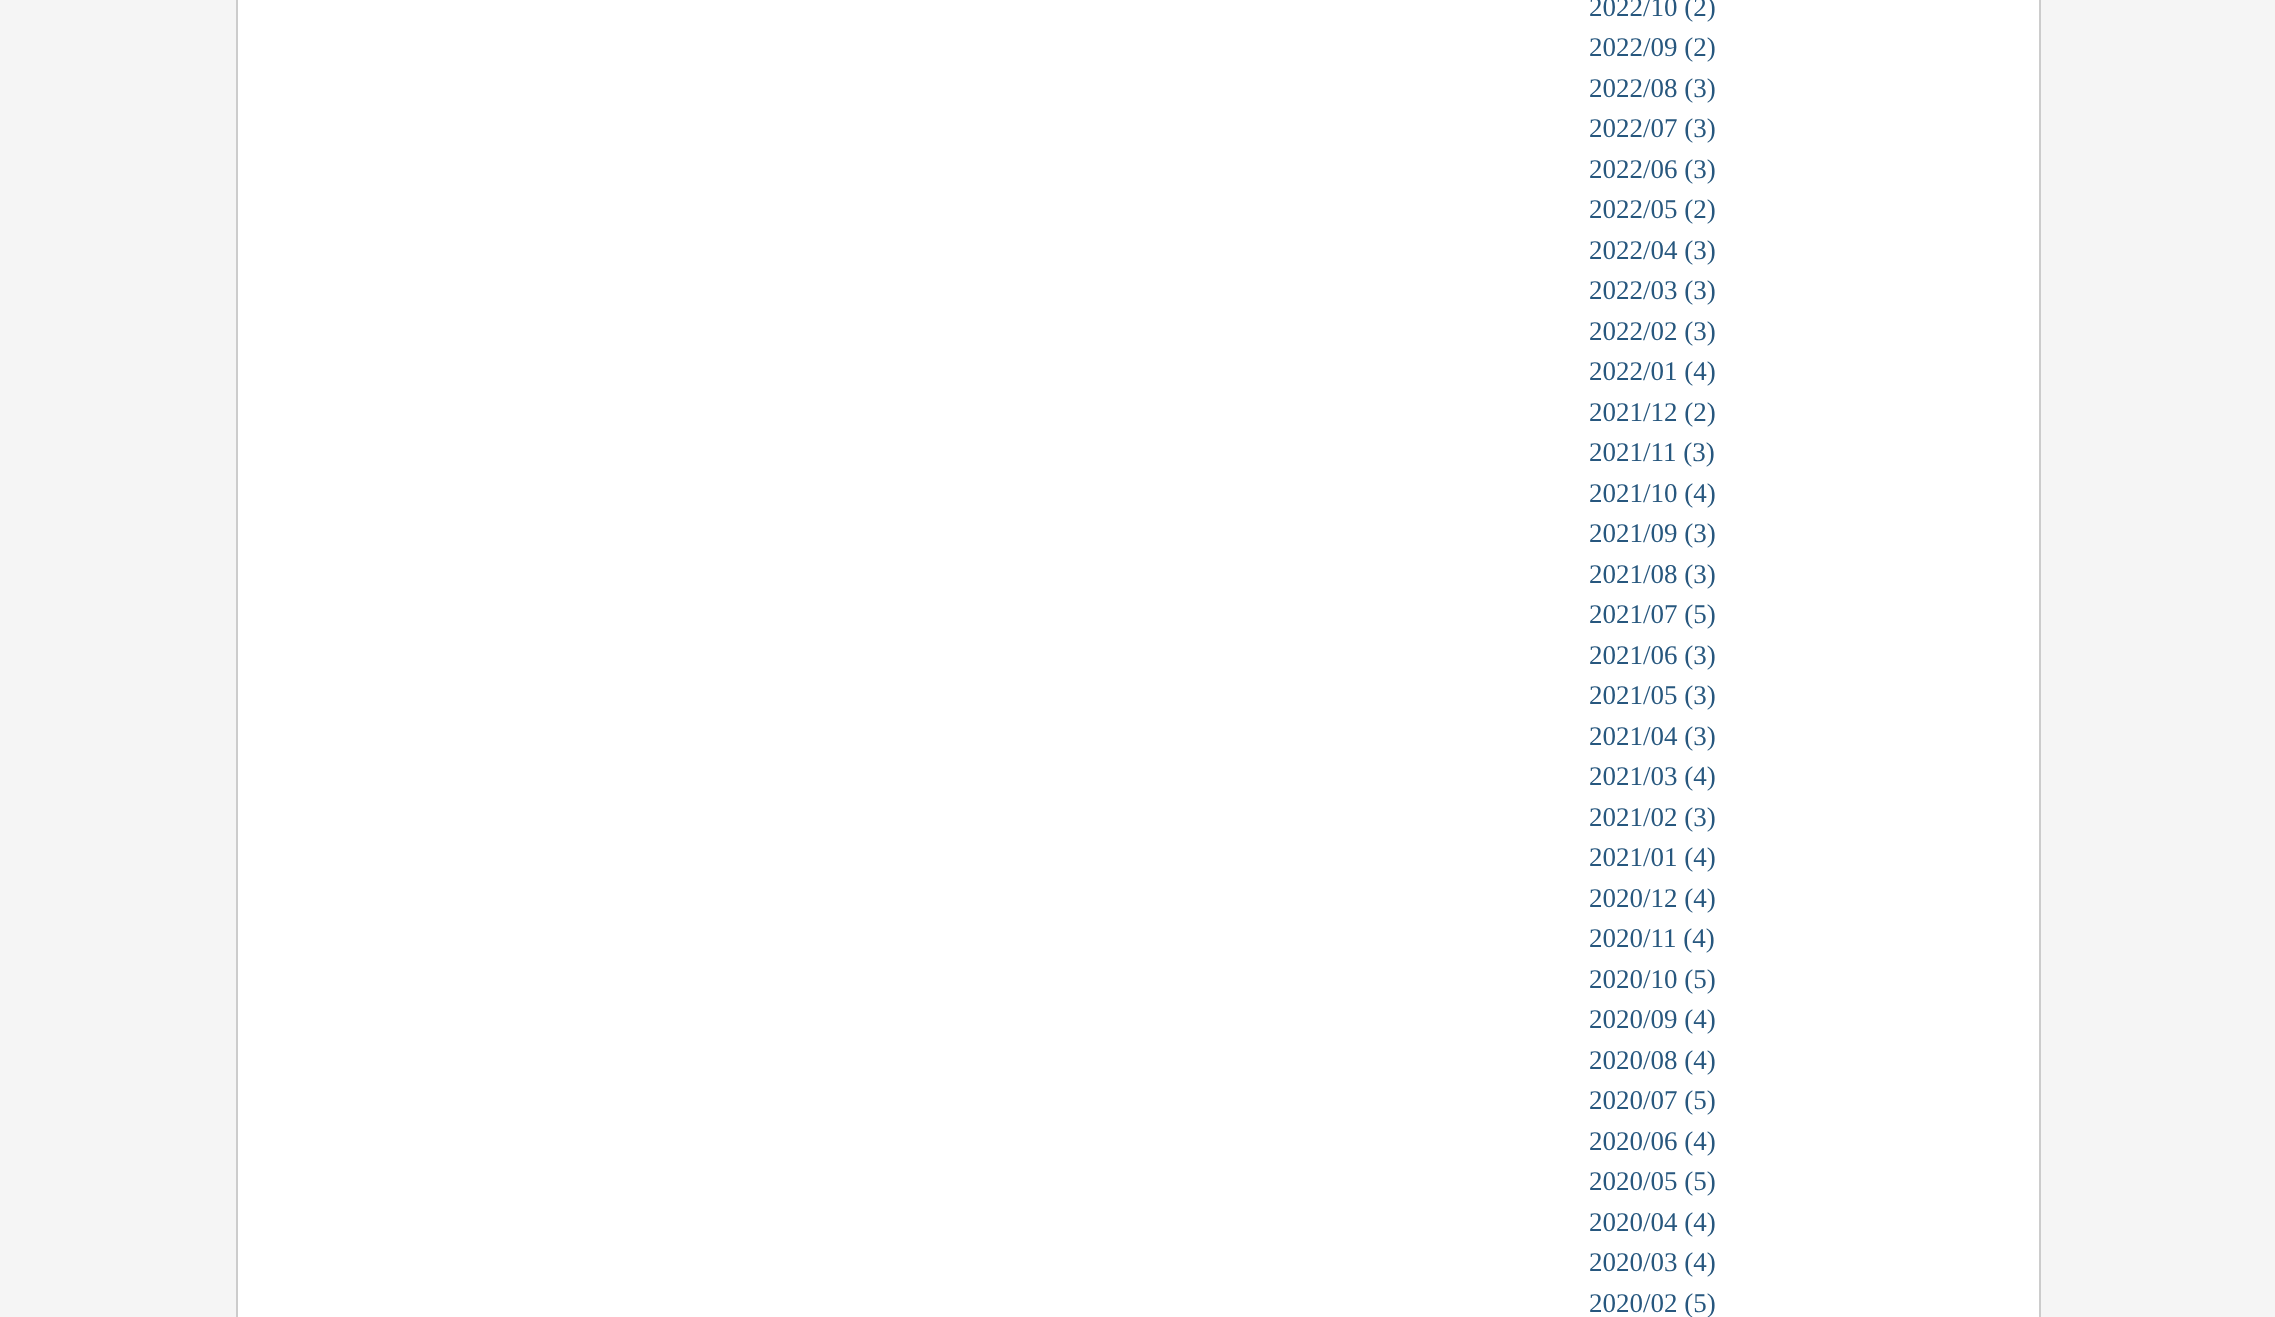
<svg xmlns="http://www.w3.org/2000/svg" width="2275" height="1317">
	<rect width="100%" height="100%" fill="#F5F5F5" />
	<rect x="238" y="0" width="1801" height="1317" fill="#FFFFFF" />
	<rect x="2039" y="0" width="2" height="1317" fill="#CCCCCC" />
	<rect x="236" y="0" width="2" height="1317" fill="#CCCCCC" />
	<g font-family="Liberation Serif" font-size="27" fill="#27577E">
		<text x="1589" y="16">2022/10 (2)</text>
		<text x="1589" y="56">2022/09 (2)</text>
		<text x="1589" y="97">2022/08 (3)</text>
		<text x="1589" y="137">2022/07 (3)</text>
		<text x="1589" y="178">2022/06 (3)</text>
		<text x="1589" y="218">2022/05 (2)</text>
		<text x="1589" y="259">2022/04 (3)</text>
		<text x="1589" y="299">2022/03 (3)</text>
		<text x="1589" y="340">2022/02 (3)</text>
		<text x="1589" y="380">2022/01 (4)</text>
		<text x="1589" y="421">2021/12 (2)</text>
		<text x="1589" y="461">2021/11 (3)</text>
		<text x="1589" y="502">2021/10 (4)</text>
		<text x="1589" y="542">2021/09 (3)</text>
		<text x="1589" y="583">2021/08 (3)</text>
		<text x="1589" y="623">2021/07 (5)</text>
		<text x="1589" y="664">2021/06 (3)</text>
		<text x="1589" y="704">2021/05 (3)</text>
		<text x="1589" y="745">2021/04 (3)</text>
		<text x="1589" y="785">2021/03 (4)</text>
		<text x="1589" y="826">2021/02 (3)</text>
		<text x="1589" y="866">2021/01 (4)</text>
		<text x="1589" y="907">2020/12 (4)</text>
		<text x="1589" y="947">2020/11 (4)</text>
		<text x="1589" y="988">2020/10 (5)</text>
		<text x="1589" y="1028">2020/09 (4)</text>
		<text x="1589" y="1069">2020/08 (4)</text>
		<text x="1589" y="1109">2020/07 (5)</text>
		<text x="1589" y="1150">2020/06 (4)</text>
		<text x="1589" y="1190">2020/05 (5)</text>
		<text x="1589" y="1231">2020/04 (4)</text>
		<text x="1589" y="1271">2020/03 (4)</text>
		<text x="1589" y="1312">2020/02 (5)</text>
	</g>
</svg>
